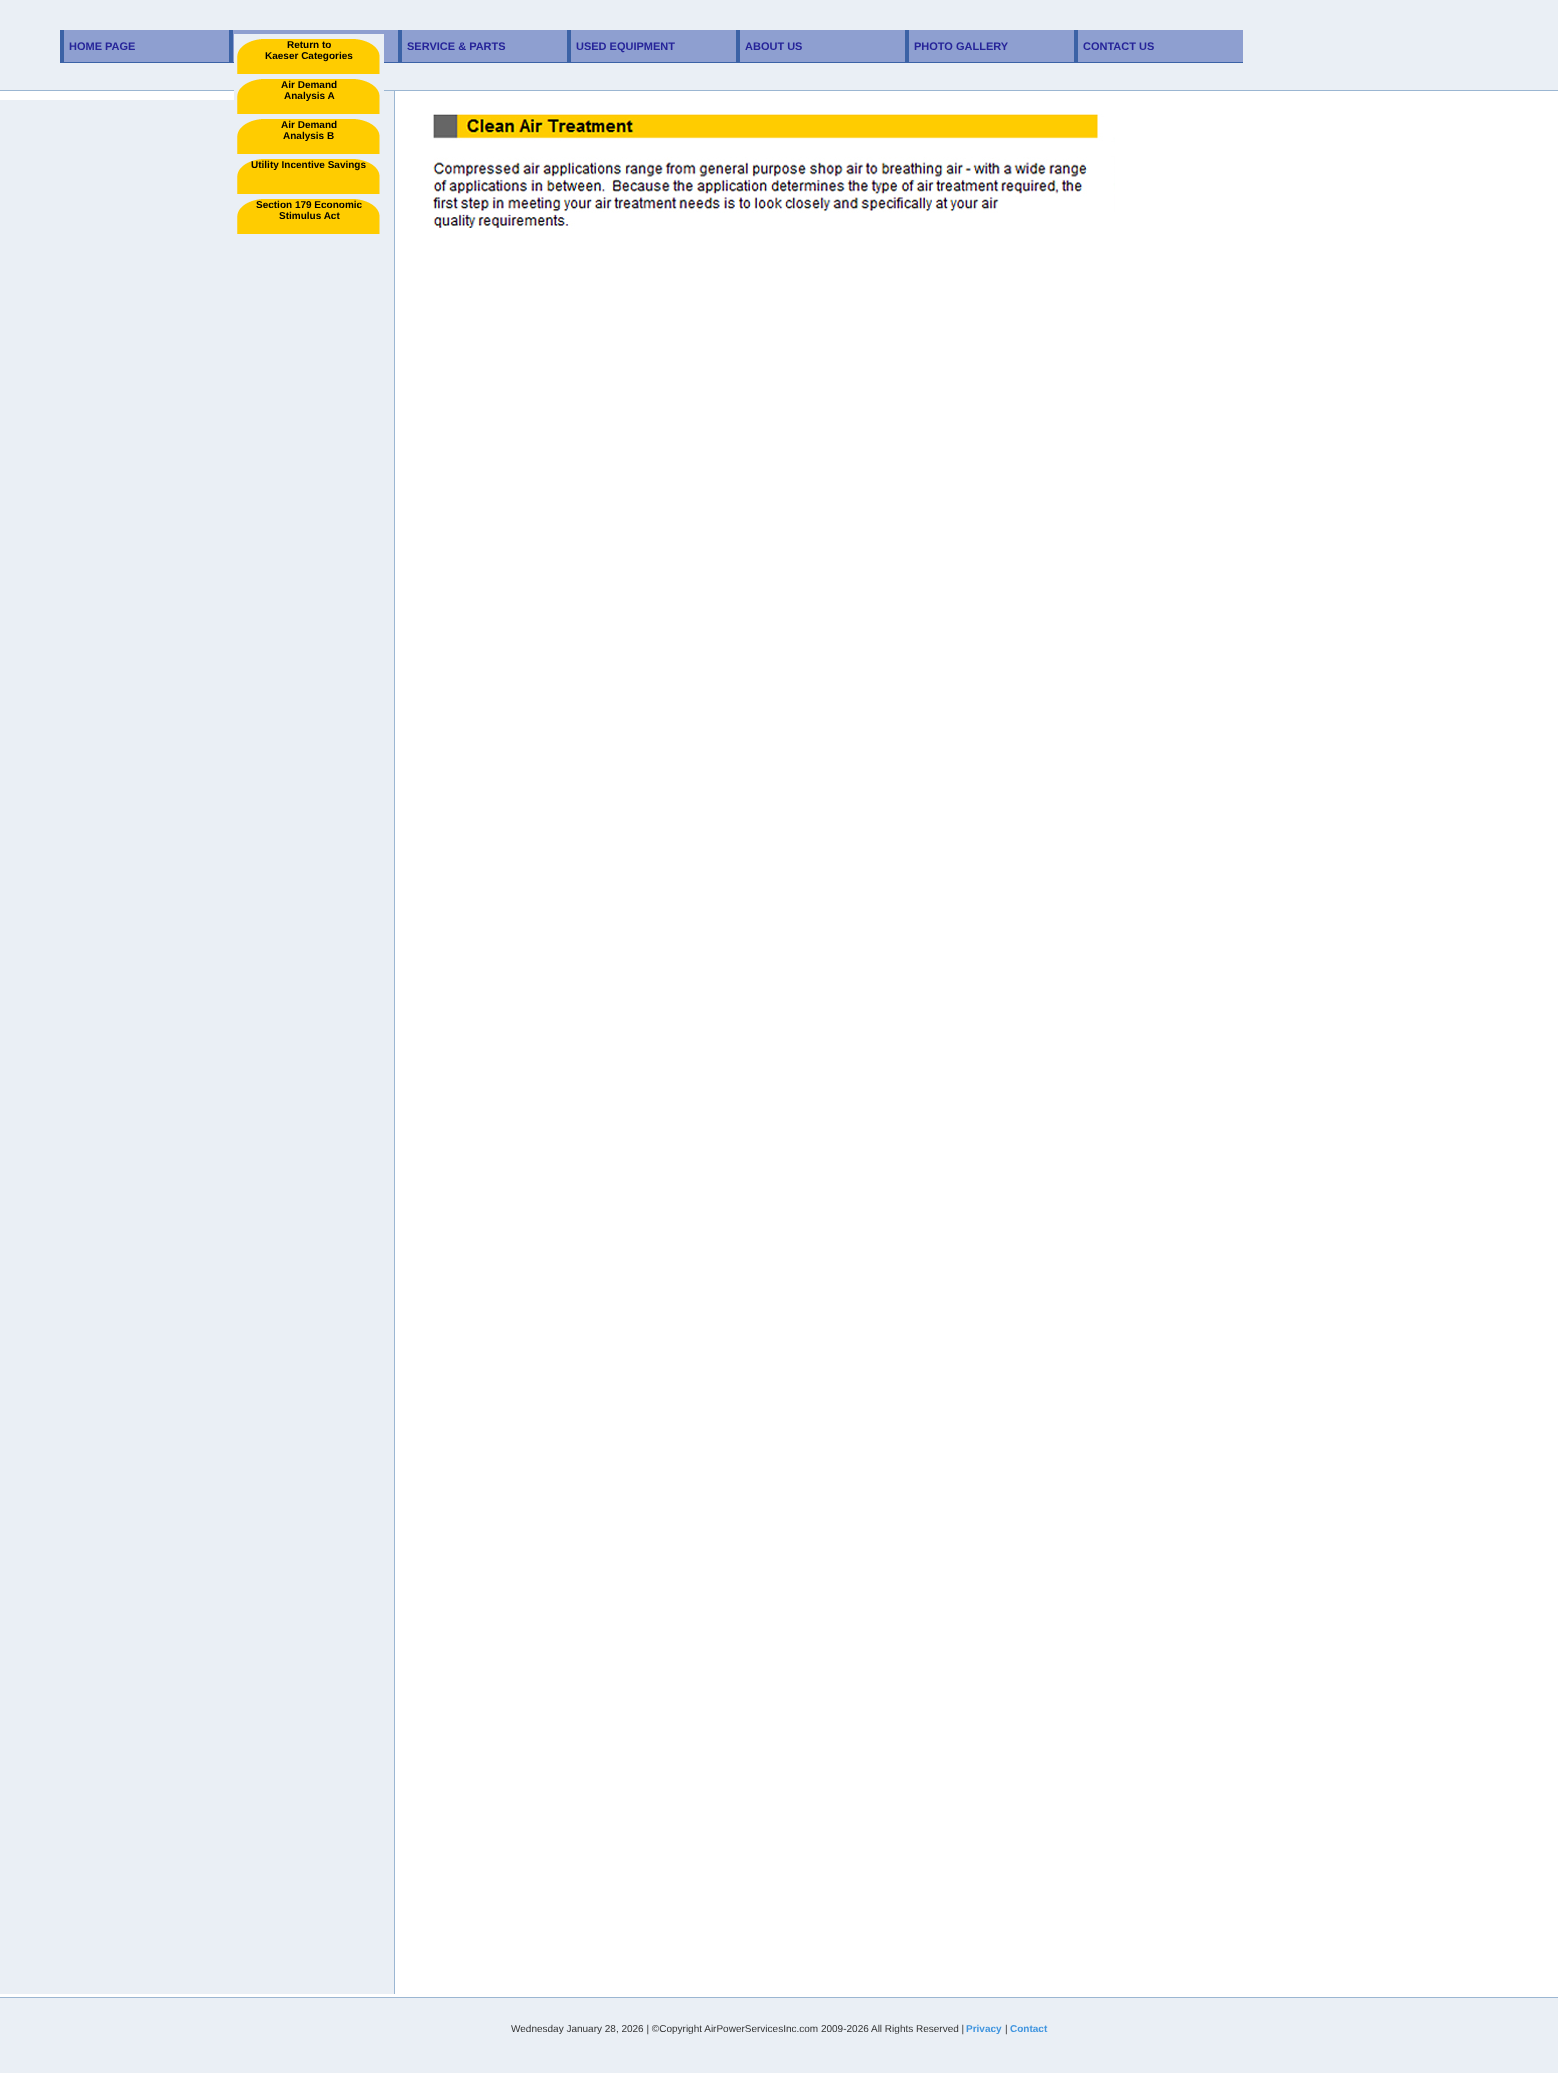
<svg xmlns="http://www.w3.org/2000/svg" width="1558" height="2073">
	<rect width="100%" height="100%" fill="#FFFFFF" />
	<rect x="0" y="91" width="394" height="1903" fill="#EAEFF5" />
	<rect x="394" y="91" width="1" height="1903" fill="#9BB6D2" />
	<rect x="0" y="0" width="1558" height="90" fill="#EAEFF5" />
	<rect x="60" y="62" width="1183" height="1" fill="#3B62A6" />
	<rect x="233" y="30" width="165" height="32" fill="#8E9FD0" />
	<image x="234" y="34" width="150" height="40" href="assets/img1.png" />
	<g font-family="Liberation Sans" font-size="10" font-weight="700" fill="#000000">
		<text x="287" y="48">Return to</text>
		<text x="265" y="59">Kaeser Categories</text>
	</g>
	<rect x="0" y="90" width="1558" height="1" fill="#9BB6D2" />
	<image x="234" y="79" width="150" height="35" href="assets/img2.png" />
	<g font-family="Liberation Sans" font-size="10" font-weight="700" fill="#000000">
		<text x="281" y="88">Air Demand</text>
		<text x="284" y="99">Analysis A</text>
	</g>
	<image x="237" y="119" width="143" height="35" href="assets/img3.png" />
	<g font-family="Liberation Sans" font-size="10" font-weight="700" fill="#000000">
		<text x="281" y="128">Air Demand</text>
		<text x="283" y="139">Analysis B</text>
	</g>
	<image x="237" y="159" width="143" height="35" href="assets/img3.png" />
	<text x="251" y="168" font-family="Liberation Sans" font-size="10" font-weight="700" fill="#000000">Utility Incentive Savings</text>
	<image x="237" y="199" width="143" height="35" href="assets/img3.png" />
	<g font-family="Liberation Sans" font-size="10" font-weight="700" fill="#000000">
		<text x="256" y="208">Section 179 Economic</text>
		<text x="279" y="219">Stimulus Act</text>
	</g>
	<image x="433" y="114" width="682" height="115" href="assets/img4.png" />
	<rect x="64" y="30" width="165" height="32" fill="#8E9FD0" />
	<rect x="60" y="30" width="4" height="33" fill="#3B62A6" />
	<text x="69" y="50" font-family="Liberation Sans" font-size="11" font-weight="700" fill="#262499">HOME PAGE</text>
	<rect x="229" y="30" width="4" height="33" fill="#3B62A6" />
	<rect x="402" y="30" width="165" height="32" fill="#8E9FD0" />
	<rect x="398" y="30" width="4" height="33" fill="#3B62A6" />
	<text x="407" y="50" font-family="Liberation Sans" font-size="11" font-weight="700" fill="#262499">SERVICE &amp; PARTS</text>
	<rect x="571" y="30" width="165" height="32" fill="#8E9FD0" />
	<rect x="567" y="30" width="4" height="33" fill="#3B62A6" />
	<text x="576" y="50" font-family="Liberation Sans" font-size="11" font-weight="700" fill="#262499">USED EQUIPMENT</text>
	<rect x="740" y="30" width="165" height="32" fill="#8E9FD0" />
	<rect x="736" y="30" width="4" height="33" fill="#3B62A6" />
	<text x="745" y="50" font-family="Liberation Sans" font-size="11" font-weight="700" fill="#262499">ABOUT US</text>
	<rect x="909" y="30" width="165" height="32" fill="#8E9FD0" />
	<rect x="905" y="30" width="4" height="33" fill="#3B62A6" />
	<text x="914" y="50" font-family="Liberation Sans" font-size="11" font-weight="700" fill="#262499">PHOTO GALLERY</text>
	<rect x="1078" y="30" width="165" height="32" fill="#8E9FD0" />
	<rect x="1074" y="30" width="4" height="33" fill="#3B62A6" />
	<text x="1083" y="50" font-family="Liberation Sans" font-size="11" font-weight="700" fill="#262499">CONTACT US</text>
	<image x="0" y="91" width="234" height="9" href="assets/img5.png" />
	<rect x="0" y="1998" width="1558" height="75" fill="#EAEFF5" />
	<rect x="0" y="1997" width="1558" height="1" fill="#9BB6D2" />
	<text x="511" y="2032" font-family="Liberation Sans" font-size="10" fill="#333333">Wednesday January 28, 2026 | ©Copyright AirPowerServicesInc.com 2009-2026 All Rights Reserved |</text>
	<text x="966" y="2032" font-family="Liberation Sans" font-size="10" font-weight="700" fill="#4095DF">Privacy</text>
	<text x="1005" y="2032" font-family="Liberation Sans" font-size="10" fill="#333333">|</text>
	<text x="1010" y="2032" font-family="Liberation Sans" font-size="10" font-weight="700" fill="#4095DF">Contact</text>
</svg>
